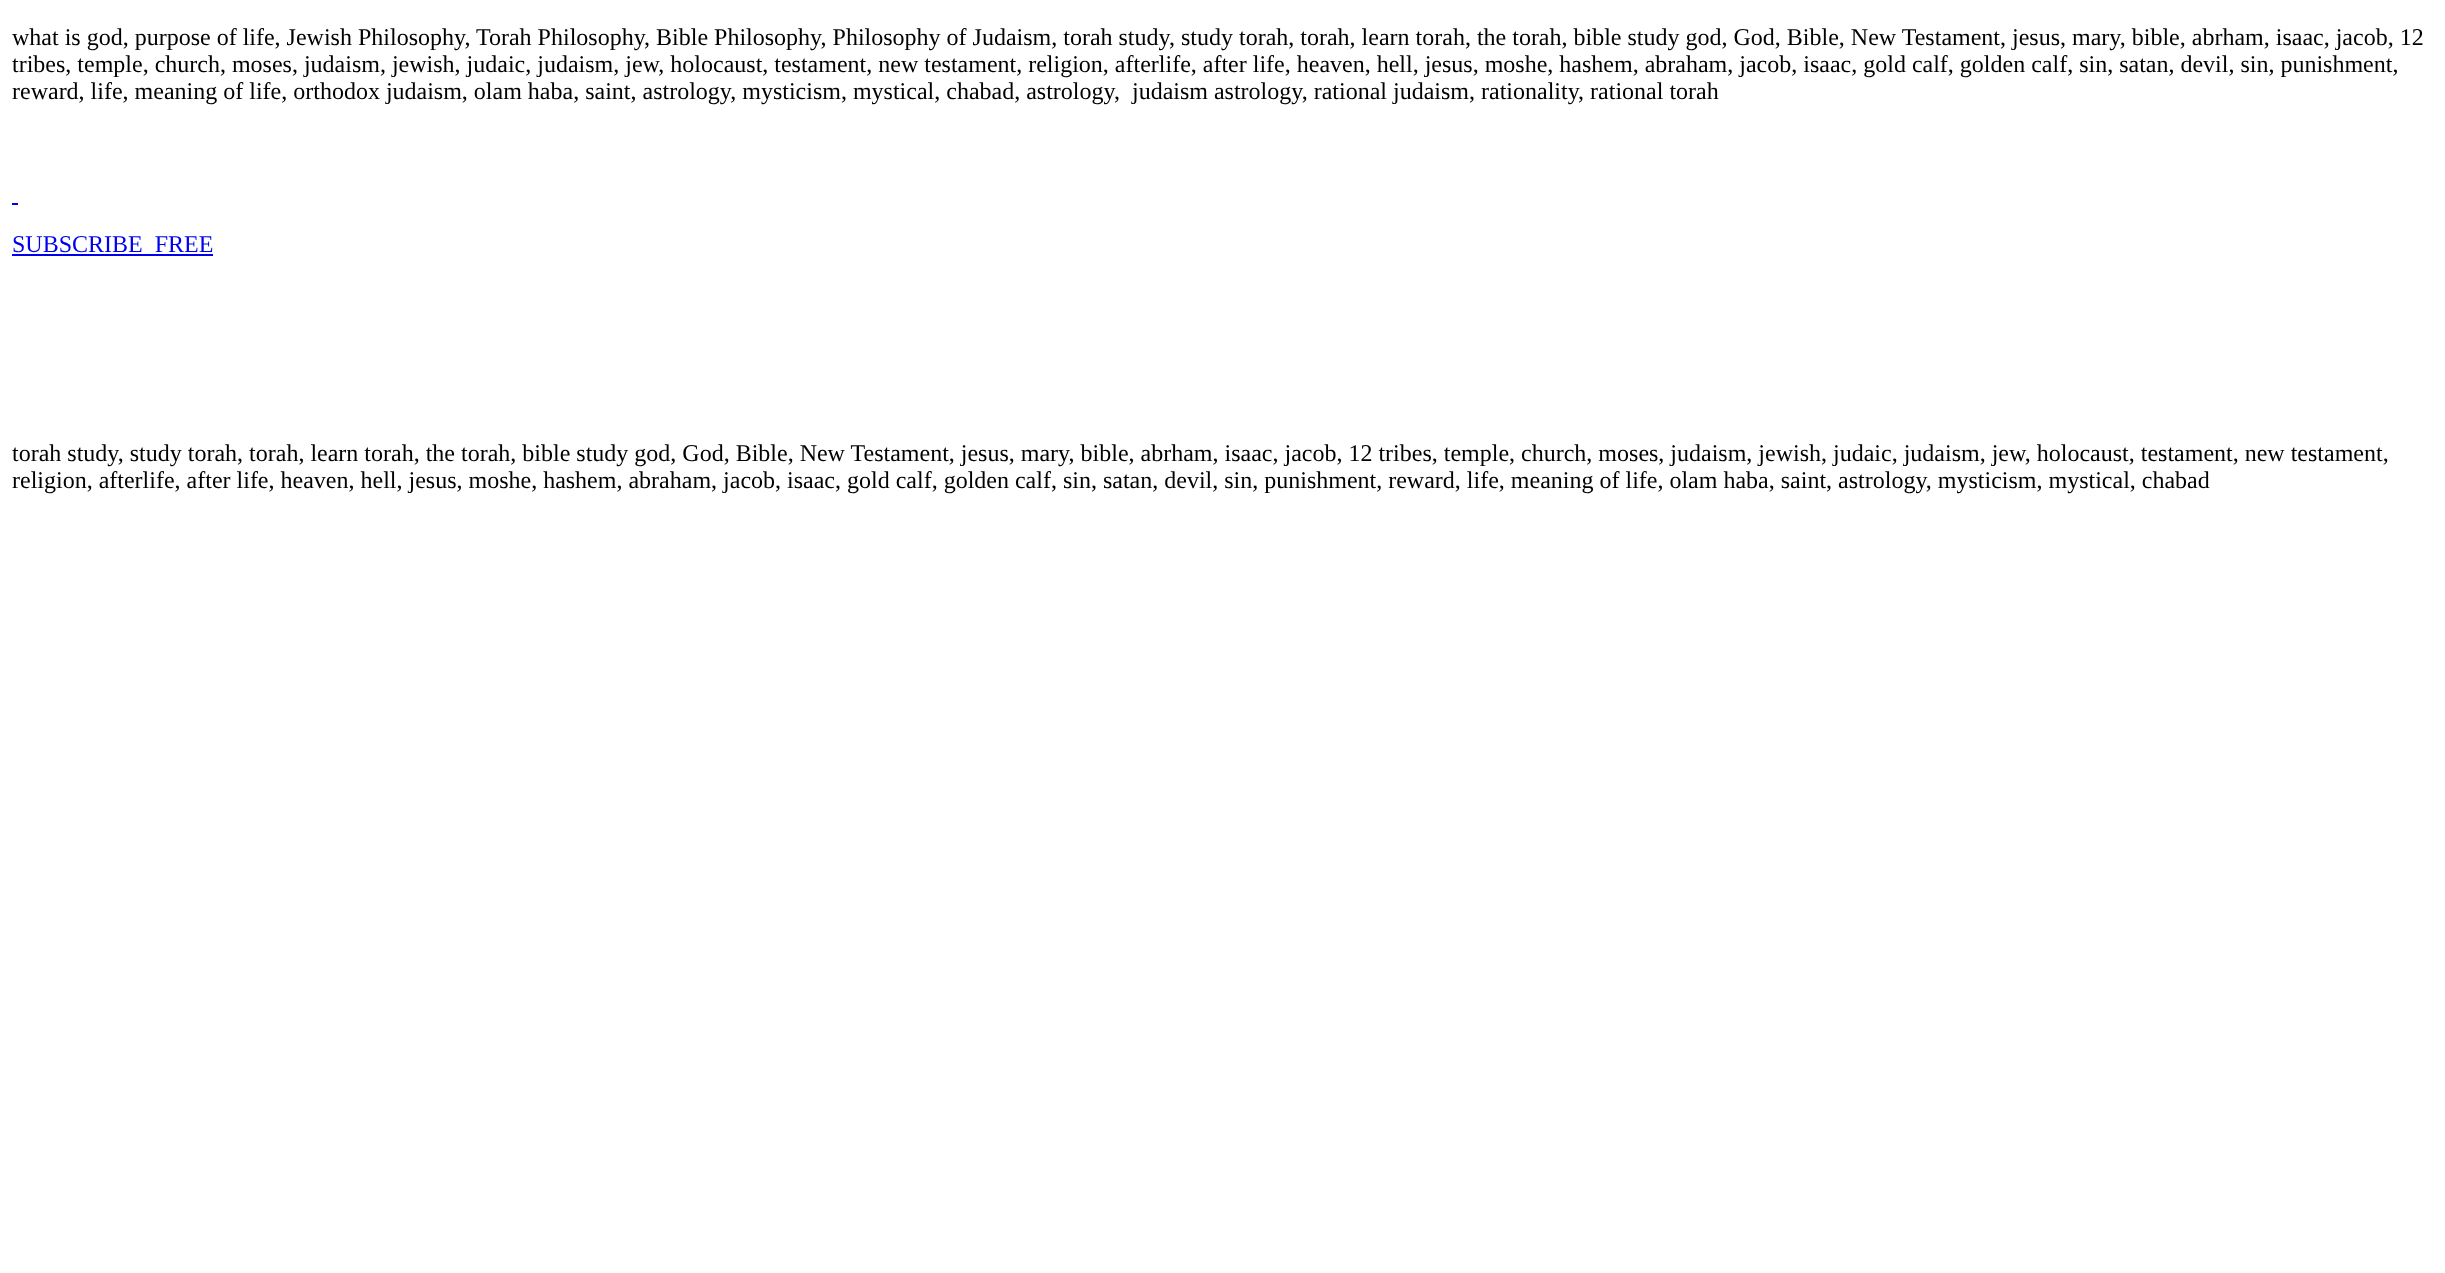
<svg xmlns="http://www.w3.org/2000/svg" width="2445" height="1273">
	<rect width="100%" height="100%" fill="#FFFFFF" />
	<g font-family="Liberation Serif" font-size="24" fill="#000000">
		<text x="12" y="45">what is god, purpose of life, Jewish Philosophy, Torah Philosophy, Bible Philosophy, Philosophy of Judaism, torah study, study torah, torah, learn torah, the torah, bible study god, God, Bible, New Testament, jesus, mary, bible, abrham, isaac, jacob, 12</text>
		<text x="12" y="72">tribes, temple, church, moses, judaism, jewish, judaic, judaism, jew, holocaust, testament, new testament, religion, afterlife, after life, heaven, hell, jesus, moshe, hashem, abraham, jacob, isaac, gold calf, golden calf, sin, satan, devil, sin, punishment,</text>
		<text x="12" y="99" xml:space="preserve">reward, life, meaning of life, orthodox judaism, olam haba, saint, astrology, mysticism, mystical, chabad, astrology,  judaism astrology, rational judaism, rationality, rational torah</text>
	</g>
	<rect x="12" y="203" width="6" height="2" fill="#0000EE" />
	<text x="12" y="252" font-family="Liberation Serif" font-size="24" fill="#0000EE" xml:space="preserve">SUBSCRIBE  FREE</text>
	<rect x="12" y="254" width="201" height="2" fill="#0000EE" />
	<g font-family="Liberation Serif" font-size="24" fill="#000000">
		<text x="12" y="461">torah study, study torah, torah, learn torah, the torah, bible study god, God, Bible, New Testament, jesus, mary, bible, abrham, isaac, jacob, 12 tribes, temple, church, moses, judaism, jewish, judaic, judaism, jew, holocaust, testament, new testament,</text>
		<text x="12" y="488">religion, afterlife, after life, heaven, hell, jesus, moshe, hashem, abraham, jacob, isaac, gold calf, golden calf, sin, satan, devil, sin, punishment, reward, life, meaning of life, olam haba, saint, astrology, mysticism, mystical, chabad</text>
	</g>
</svg>
